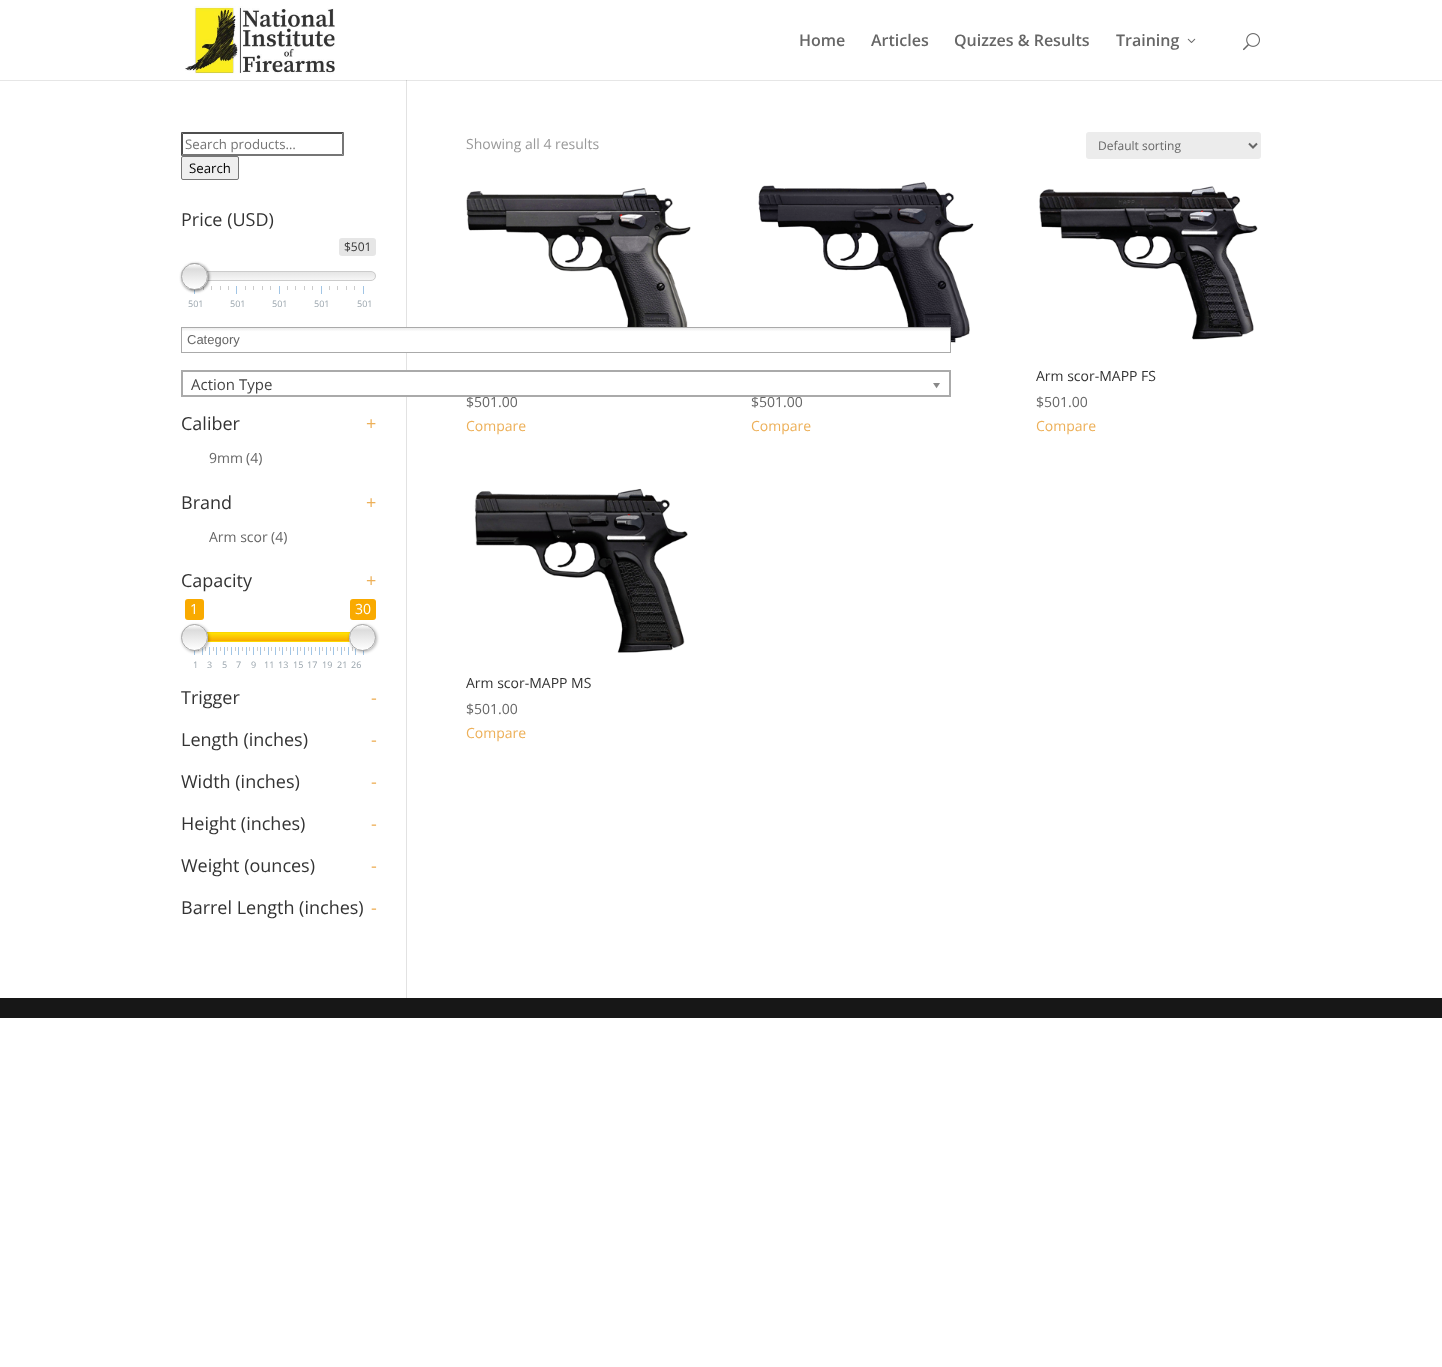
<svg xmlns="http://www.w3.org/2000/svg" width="1442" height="1367">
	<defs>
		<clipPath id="clip1"><rect x="181" y="271" width="195" height="10" rx="5" /></clipPath>
		<linearGradient id="g1" gradientUnits="userSpaceOnUse" x1="279" y1="268" x2="279" y2="284"><stop offset="0" stop-color="#DDDDDD" /><stop offset="1" stop-color="#FFFFFF" /></linearGradient>
		<clipPath id="clip2"><rect x="181" y="263" width="27" height="27" rx="13.5" /></clipPath>
		<linearGradient id="g2" gradientUnits="userSpaceOnUse" x1="195" y1="264" x2="195" y2="289"><stop offset="0" stop-color="#FFFFFF" /><stop offset="0.2" stop-color="#DCDCDC" /><stop offset="1" stop-color="#FFFFFF" /></linearGradient>
		<linearGradient id="g3" gradientUnits="userSpaceOnUse" x1="566" y1="328" x2="566" y2="352"><stop offset="0.01" stop-color="#EEEEEE" /><stop offset="0.15" stop-color="#FFFFFF" /></linearGradient>
		<clipPath id="clip3"><rect x="181" y="632" width="195" height="10" rx="5" /></clipPath>
		<linearGradient id="g4" gradientUnits="userSpaceOnUse" x1="279" y1="629" x2="279" y2="645"><stop offset="0" stop-color="#DDDDDD" /><stop offset="1" stop-color="#FFFFFF" /></linearGradient>
		<linearGradient id="g5" gradientUnits="userSpaceOnUse" x1="279" y1="641" x2="279" y2="633"><stop offset="0" stop-color="#F9AA00" /><stop offset="1" stop-color="#FFE100" stop-opacity="0.98" /></linearGradient>
		<clipPath id="clip4"><rect x="181" y="624" width="27" height="27" rx="13.5" /></clipPath>
		<linearGradient id="g6" gradientUnits="userSpaceOnUse" x1="195" y1="625" x2="195" y2="650"><stop offset="0" stop-color="#FFFFFF" /><stop offset="0.2" stop-color="#DCDCDC" /><stop offset="1" stop-color="#FFFFFF" /></linearGradient>
		<clipPath id="clip5"><rect x="349" y="624" width="27" height="27" rx="13.5" /></clipPath>
		<linearGradient id="g7" gradientUnits="userSpaceOnUse" x1="363" y1="625" x2="363" y2="650"><stop offset="0" stop-color="#FFFFFF" /><stop offset="0.2" stop-color="#DCDCDC" /><stop offset="1" stop-color="#FFFFFF" /></linearGradient>
	</defs>
	<rect width="100%" height="100%" fill="#FFFFFF" />
	<rect x="0" y="80" width="1442" height="1" fill="#E6E6E6" />
	<rect x="406" y="74" width="1" height="924" fill="#E2E2E2" />
	<rect x="406" y="74" width="1" height="6" fill="#FFFFFF" />
	<image x="185" y="6" width="150" height="68" href="assets/img1.png" />
	<g font-family="Open Sans" font-size="16" font-weight="600" fill="#666666">
		<text x="799" y="46">Home</text>
		<text x="871" y="46">Articles</text>
		<text x="954" y="46">Quizzes &amp; Results</text>
		<text x="1116" y="46">Training</text>
	</g>
	<image x="1187" y="38" width="9" height="5" href="assets/img2.png" />
	<image x="1243" y="33" width="17" height="18" href="assets/img3.png" />
	<rect x="406" y="80" width="1" height="1" fill="#CBCBCB" />
	<path d="M181 132H344L342 134H183Z" fill="#4F4F4F" />
	<path d="M344 132V156L342 154V134Z" fill="#767676" />
	<path d="M344 156H181L183 154H342Z" fill="#767676" />
	<path d="M181 156V132L183 134V154Z" fill="#4F4F4F" />
	<text x="185" y="149" font-family="Open Sans" font-size="13.25" fill="#757575">Search products…</text>
	<rect x="181.5" y="156.5" width="57" height="23" rx="1.5" fill="#EFEFEF" stroke="#767676" />
	<text x="189" y="173" font-family="Open Sans" font-size="13.25" fill="#000000">Search</text>
	<text x="181" y="226" font-family="Open Sans" font-size="18" fill="#333333">Price (USD)</text>
	<rect x="339" y="238" width="37" height="18" rx="3" fill="#E6E6E6" />
	<text x="344" y="251" font-family="Open Sans" font-size="12" fill="#333333">$501</text>
	<g clip-path="url(#clip1)">
		<rect x="181" y="272" width="195" height="8" fill="url(#g1)" />
	</g>
	<rect x="181.5" y="271.5" width="194" height="9" rx="4.5" fill="none" stroke="#CCCCCC" />
	<rect x="194" y="286" width="1" height="8" fill="#A1C5E5" />
	<rect x="203" y="286" width="1" height="4" fill="#CCCCCC" />
	<rect x="211" y="286" width="1" height="4" fill="#CCCCCC" />
	<rect x="182" y="264" width="27" height="27" rx="13.5" fill="#000000" fill-opacity="0.3" filter="blur(1.5px)" />
	<circle cx="194.5" cy="276.5" r="13" fill="none" stroke="#AAAAAA" />
	<rect x="182" y="264" width="27" height="27" rx="13.5" fill="#000000" fill-opacity="0.3" filter="blur(1.5px)" />
	<g clip-path="url(#clip2)">
		<rect x="181" y="264" width="27" height="25" fill="url(#g2)" />
	</g>
	<circle cx="194.5" cy="276.5" r="13" fill="none" stroke="#AAAAAA" />
	<rect x="220" y="286" width="1" height="4" fill="#CCCCCC" />
	<rect x="228" y="286" width="1" height="4" fill="#CCCCCC" />
	<rect x="236" y="286" width="1" height="8" fill="#A1C5E5" />
	<rect x="245" y="286" width="1" height="4" fill="#CCCCCC" />
	<rect x="253" y="286" width="1" height="4" fill="#CCCCCC" />
	<rect x="262" y="286" width="1" height="4" fill="#CCCCCC" />
	<rect x="270" y="286" width="1" height="4" fill="#CCCCCC" />
	<rect x="279" y="286" width="1" height="8" fill="#A1C5E5" />
	<rect x="287" y="286" width="1" height="4" fill="#CCCCCC" />
	<rect x="295" y="286" width="1" height="4" fill="#CCCCCC" />
	<rect x="304" y="286" width="1" height="4" fill="#CCCCCC" />
	<rect x="312" y="286" width="1" height="4" fill="#CCCCCC" />
	<rect x="321" y="286" width="1" height="8" fill="#A1C5E5" />
	<rect x="329" y="286" width="1" height="4" fill="#CCCCCC" />
	<rect x="337" y="286" width="1" height="4" fill="#CCCCCC" />
	<rect x="346" y="286" width="1" height="4" fill="#CCCCCC" />
	<rect x="354" y="286" width="1" height="4" fill="#CCCCCC" />
	<rect x="363" y="286" width="1" height="8" fill="#A1C5E5" />
	<g font-family="Open Sans" font-size="9" fill="#99A4AC">
		<text x="188" y="307">501</text>
		<text x="230" y="307">501</text>
		<text x="272" y="307">501</text>
		<text x="314" y="307">501</text>
		<text x="357" y="307">501</text>
	</g>
	<image x="758" y="182" width="216" height="161" href="assets/img6.png" />
	<rect x="182" y="328" width="768" height="24" fill="url(#g3)" />
	<rect x="181.5" y="327.5" width="769" height="25" fill="none" stroke="#AAAAAA" />
	<text x="187" y="344" font-family="Liberation Sans" font-size="13" fill="#666666">Category</text>
	<rect x="406" y="372" width="1" height="23" fill="#FFFFFF" />
	<g font-family="Open Sans" font-size="14" fill="#666666">
		<text x="466" y="407">$501.00</text>
		<text x="751" y="407">$501.00</text>
	</g>
	<rect x="182" y="371" width="768" height="25" fill="none" stroke="#AAAAAA" stroke-width="2" />
	<text x="191" y="390" font-family="Open Sans" font-size="15" fill="#444444">Action Type</text>
	<image x="933" y="383" width="7" height="6" href="assets/img4.png" />
	<text x="181" y="430" font-family="Open Sans" font-size="18" fill="#333333">Caliber</text>
	<text x="366" y="430" font-family="Open Sans" font-size="18" fill="#EDB059">+</text>
	<g font-family="Open Sans" font-size="14" fill="#666666">
		<text x="209" y="463">9mm</text>
		<text x="246" y="463">(4)</text>
	</g>
	<text x="181" y="509" font-family="Open Sans" font-size="18" fill="#333333">Brand</text>
	<text x="366" y="509" font-family="Open Sans" font-size="18" fill="#EDB059">+</text>
	<g font-family="Open Sans" font-size="14" fill="#666666">
		<text x="209" y="542">Arm scor</text>
		<text x="271" y="542">(4)</text>
	</g>
	<text x="181" y="587" font-family="Open Sans" font-size="18" fill="#333333">Capacity</text>
	<text x="366" y="587" font-family="Open Sans" font-size="18" fill="#EDB059">+</text>
	<rect x="185" y="599" width="19" height="21" rx="3" fill="#F9AA00" />
	<text x="190" y="614" font-family="Open Sans" font-size="14" fill="#FFFFFF">1</text>
	<rect x="350" y="599" width="26" height="21" rx="3" fill="#F9AA00" />
	<text x="355" y="614" font-family="Open Sans" font-size="14" fill="#FFFFFF">30</text>
	<g clip-path="url(#clip3)">
		<rect x="181" y="633" width="195" height="7" fill="url(#g4)" />
	</g>
	<rect x="181.5" y="632.5" width="194" height="9" rx="4.5" fill="none" stroke="#CCCCCC" />
	<rect x="207" y="633" width="143" height="8" fill="url(#g5)" />
	<rect x="206" y="632" width="145" height="1" fill="#FCD600" />
	<rect x="207" y="641" width="143" height="1" fill="#FCD600" />
	<rect x="194" y="647" width="1" height="8" fill="#A1C5E5" />
	<rect x="198" y="647" width="1" height="4" fill="#CCCCCC" />
	<rect x="202" y="647" width="1" height="8" fill="#A1C5E5" />
	<rect x="205" y="647" width="1" height="4" fill="#CCCCCC" />
	<rect x="209" y="647" width="1" height="8" fill="#A1C5E5" />
	<rect x="213" y="647" width="1" height="4" fill="#CCCCCC" />
	<rect x="182" y="625" width="27" height="27" rx="13.5" fill="#000000" fill-opacity="0.3" filter="blur(1.5px)" />
	<g clip-path="url(#clip4)">
		<rect x="181" y="625" width="27" height="25" fill="url(#g6)" />
	</g>
	<circle cx="194.5" cy="637.5" r="13" fill="none" stroke="#AAAAAA" />
	<rect x="344" y="647" width="1" height="4" fill="#CCCCCC" />
	<rect x="348" y="647" width="1" height="8" fill="#A1C5E5" />
	<rect x="352" y="647" width="1" height="4" fill="#CCCCCC" />
	<rect x="355" y="647" width="1" height="8" fill="#A1C5E5" />
	<rect x="363" y="647" width="1" height="8" fill="#A1C5E5" />
	<rect x="350" y="625" width="27" height="27" rx="13.5" fill="#000000" fill-opacity="0.3" filter="blur(1.5px)" />
	<g clip-path="url(#clip5)">
		<rect x="349" y="625" width="27" height="25" fill="url(#g7)" />
	</g>
	<circle cx="362.5" cy="637.5" r="13" fill="none" stroke="#AAAAAA" />
	<rect x="216" y="647" width="1" height="8" fill="#A1C5E5" />
	<rect x="220" y="647" width="1" height="4" fill="#CCCCCC" />
	<rect x="224" y="647" width="1" height="8" fill="#A1C5E5" />
	<rect x="227" y="647" width="1" height="4" fill="#CCCCCC" />
	<rect x="231" y="647" width="1" height="8" fill="#A1C5E5" />
	<rect x="235" y="647" width="1" height="4" fill="#CCCCCC" />
	<rect x="238" y="647" width="1" height="8" fill="#A1C5E5" />
	<rect x="242" y="647" width="1" height="4" fill="#CCCCCC" />
	<rect x="246" y="647" width="1" height="8" fill="#A1C5E5" />
	<rect x="249" y="647" width="1" height="4" fill="#CCCCCC" />
	<rect x="253" y="647" width="1" height="8" fill="#A1C5E5" />
	<rect x="257" y="647" width="1" height="4" fill="#CCCCCC" />
	<rect x="260" y="647" width="1" height="8" fill="#A1C5E5" />
	<rect x="264" y="647" width="1" height="4" fill="#CCCCCC" />
	<rect x="268" y="647" width="1" height="8" fill="#A1C5E5" />
	<rect x="271" y="647" width="1" height="4" fill="#CCCCCC" />
	<rect x="275" y="647" width="1" height="8" fill="#A1C5E5" />
	<rect x="279" y="647" width="1" height="4" fill="#CCCCCC" />
	<rect x="282" y="647" width="1" height="8" fill="#A1C5E5" />
	<rect x="286" y="647" width="1" height="4" fill="#CCCCCC" />
	<rect x="290" y="647" width="1" height="8" fill="#A1C5E5" />
	<rect x="293" y="647" width="1" height="4" fill="#CCCCCC" />
	<rect x="297" y="647" width="1" height="8" fill="#A1C5E5" />
	<rect x="300" y="647" width="1" height="4" fill="#CCCCCC" />
	<rect x="304" y="647" width="1" height="8" fill="#A1C5E5" />
	<rect x="308" y="647" width="1" height="4" fill="#CCCCCC" />
	<rect x="311" y="647" width="1" height="8" fill="#A1C5E5" />
	<rect x="315" y="647" width="1" height="4" fill="#CCCCCC" />
	<rect x="319" y="647" width="1" height="8" fill="#A1C5E5" />
	<rect x="322" y="647" width="1" height="4" fill="#CCCCCC" />
	<rect x="326" y="647" width="1" height="8" fill="#A1C5E5" />
	<rect x="330" y="647" width="1" height="4" fill="#CCCCCC" />
	<rect x="333" y="647" width="1" height="8" fill="#A1C5E5" />
	<rect x="337" y="647" width="1" height="4" fill="#CCCCCC" />
	<rect x="341" y="647" width="1" height="8" fill="#A1C5E5" />
	<g font-family="Open Sans" font-size="9" fill="#99A4AC">
		<text x="193" y="668">1</text>
		<text x="207" y="668">3</text>
		<text x="222" y="668">5</text>
		<text x="236" y="668">7</text>
		<text x="251" y="668">9</text>
		<text x="264" y="668">11</text>
		<text x="278" y="668">13</text>
		<text x="293" y="668">15</text>
		<text x="307" y="668">17</text>
		<text x="322" y="668">19</text>
		<text x="337" y="668">21</text>
		<text x="351" y="668">26</text>
	</g>
	<text x="181" y="704" font-family="Open Sans" font-size="18" fill="#333333">Trigger</text>
	<text x="371" y="704" font-family="Open Sans" font-size="18" fill="#EDB059">-</text>
	<text x="181" y="746" font-family="Open Sans" font-size="18" fill="#333333">Length (inches)</text>
	<text x="371" y="746" font-family="Open Sans" font-size="18" fill="#EDB059">-</text>
	<text x="181" y="788" font-family="Open Sans" font-size="18" fill="#333333">Width (inches)</text>
	<text x="371" y="788" font-family="Open Sans" font-size="18" fill="#EDB059">-</text>
	<text x="181" y="830" font-family="Open Sans" font-size="18" fill="#333333">Height (inches)</text>
	<text x="371" y="830" font-family="Open Sans" font-size="18" fill="#EDB059">-</text>
	<text x="181" y="872" font-family="Open Sans" font-size="18" fill="#333333">Weight (ounces)</text>
	<text x="371" y="872" font-family="Open Sans" font-size="18" fill="#EDB059">-</text>
	<text x="181" y="914" font-family="Open Sans" font-size="18" fill="#333333">Barrel Length (inches)</text>
	<text x="371" y="914" font-family="Open Sans" font-size="18" fill="#EDB059">-</text>
	<text x="466" y="149" font-family="Open Sans" font-size="14" fill="#999999">Showing all 4 results</text>
	<rect x="1086" y="132" width="175" height="27" rx="3" fill="#ECECEC" />
	<path d="M1249 143.5L1253 147.5L1257 143.5" fill="none" stroke="#666666" stroke-width="2" />
	<text x="1098" y="150" font-family="Open Sans" font-size="12" fill="#666666">Default sorting</text>
	<image x="466" y="188" width="225" height="139" href="assets/img5.png" />
	<g font-family="Open Sans" font-size="14" fill="#EDB059">
		<text x="466" y="431">Compare</text>
		<text x="751" y="431">Compare</text>
	</g>
	<image x="1039" y="186" width="219" height="154" href="assets/img7.png" />
	<text x="1036" y="381" font-family="Open Sans" font-size="14" fill="#333333">Arm scor-MAPP FS</text>
	<text x="1036" y="407" font-family="Open Sans" font-size="14" fill="#666666">$501.00</text>
	<text x="1036" y="431" font-family="Open Sans" font-size="14" fill="#EDB059">Compare</text>
	<image x="474" y="488" width="214" height="165" href="assets/img8.png" />
	<text x="466" y="688" font-family="Open Sans" font-size="14" fill="#333333">Arm scor-MAPP MS</text>
	<text x="466" y="714" font-family="Open Sans" font-size="14" fill="#666666">$501.00</text>
	<text x="466" y="738" font-family="Open Sans" font-size="14" fill="#EDB059">Compare</text>
	<rect x="0" y="998" width="1442" height="20" fill="#171717" />
</svg>
